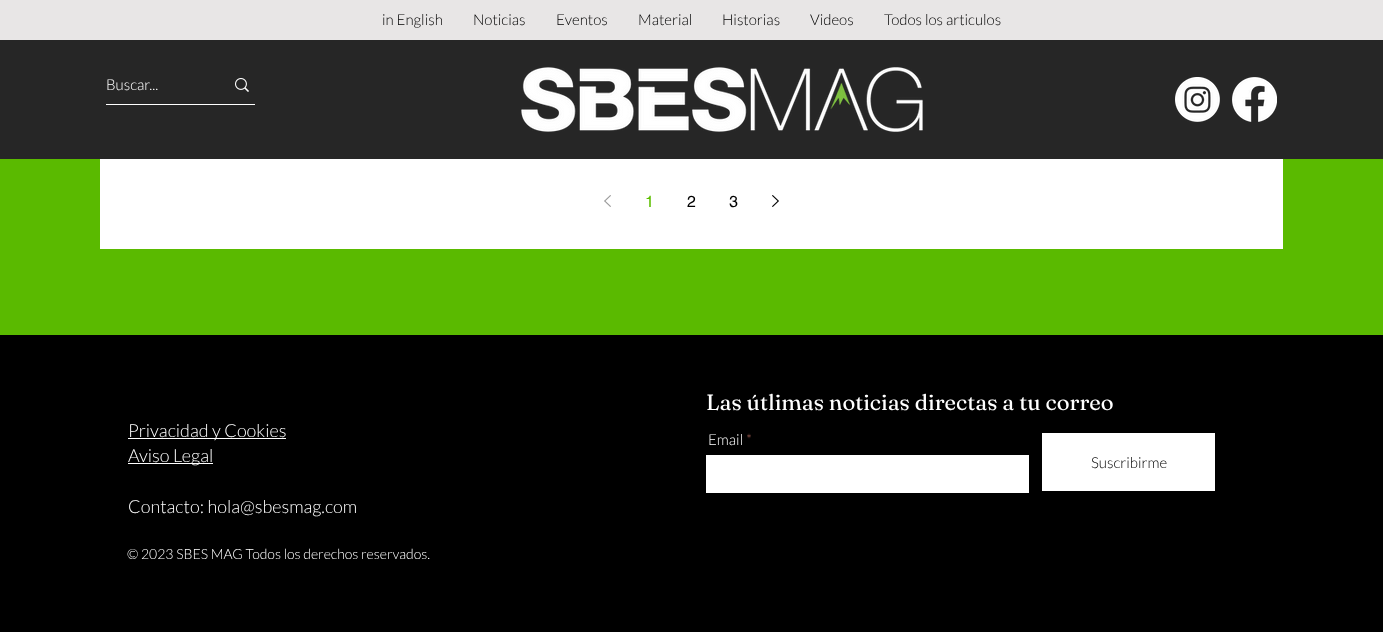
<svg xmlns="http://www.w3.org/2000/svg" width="1383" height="632">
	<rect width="100%" height="100%" fill="#5ABA00" />
	<rect x="0" y="0" width="1383" height="40" fill="#E8E6E6" />
	<g font-family="Lato" font-size="15" font-weight="300" fill="#000000">
		<text x="382" y="25">in English</text>
		<text x="473" y="25">Noticias</text>
		<text x="556" y="25">Eventos</text>
		<text x="638" y="25">Material</text>
		<text x="722" y="25">Historias</text>
		<text x="810" y="25">Videos</text>
		<text x="884" y="25">Todos los articulos</text>
	</g>
	<rect x="0" y="40" width="1383" height="119" fill="#262626" />
	<rect x="106" y="104" width="149" height="1" fill="#FFFFFF" />
	<text x="106" y="90" font-family="Lato" font-size="15" font-weight="300" fill="#FFFFFF">Buscar...</text>
	<image x="235" y="78" width="14" height="14" href="assets/img1.png" />
	<image x="521" y="67" width="402" height="65" href="assets/img2.png" />
	<image x="1175" y="77" width="45" height="45" href="assets/img3.png" />
	<image x="1232" y="77" width="45" height="45" href="assets/img4.png" />
	<rect x="100" y="159" width="1183" height="90" fill="#FFFFFF" />
	<image x="604" y="195" width="7" height="12" href="assets/img5.png" />
	<text x="645" y="207" font-family="helvetica" font-size="16" fill="#5CBF00">1</text>
	<g font-family="helvetica" font-size="16" fill="#000000">
		<text x="687" y="207">2</text>
		<text x="729" y="207">3</text>
	</g>
	<image x="772" y="195" width="7" height="12" href="assets/img6.png" />
	<rect x="0" y="335" width="1383" height="297" fill="#000000" />
	<rect x="128" y="438" width="158" height="1" fill="#FFFFFF" />
	<text x="128" y="437" font-family="Lato" font-size="18" font-weight="300" fill="#FFFFFF">Privacidad y Cookies</text>
	<rect x="128" y="463" width="85" height="1" fill="#FFFFFF" />
	<g font-family="Lato" font-size="18" font-weight="300" fill="#FFFFFF">
		<text x="128" y="462">Aviso Legal</text>
		<text x="128" y="513">Contacto: hola@sbesmag.com</text>
	</g>
	<text x="127" y="559" font-family="Lato" font-size="14" font-weight="300" fill="#FFFFFF">© 2023 SBES MAG Todos los derechos reservados.</text>
	<text x="706" y="410" font-family="Fraunces" font-size="22" fill="#FFFFFF">Las útlimas noticias directas a tu correo</text>
	<text x="708" y="445" font-family="Lato" font-size="15" font-weight="300" fill="#FFFFFF">Email</text>
	<text x="746" y="445" font-family="Lato" font-size="15" font-weight="300" fill="#A45F53">*</text>
	<rect x="706" y="455" width="323" height="38" fill="#FFFFFF" />
	<rect x="1042" y="433" width="173" height="58" fill="#FFFFFF" />
	<text x="1091" y="468" font-family="Lato" font-size="15" font-weight="300" fill="#000000">Suscribirme</text>
</svg>
